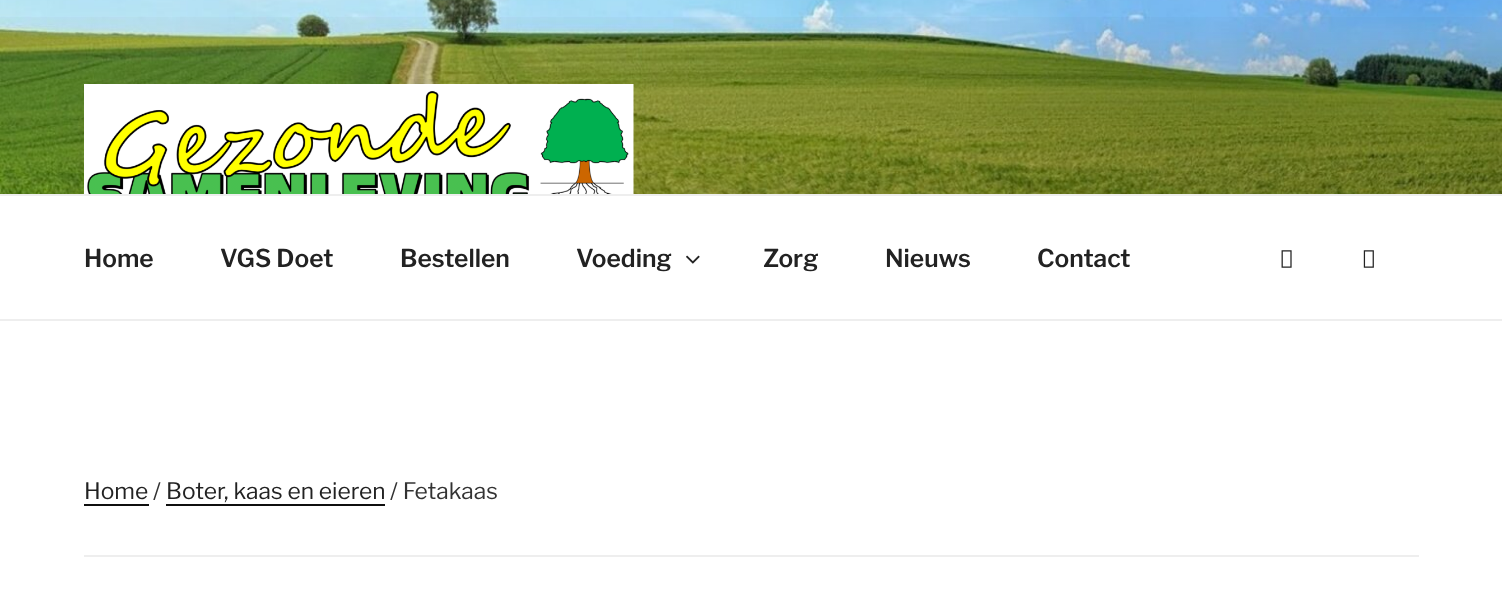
<svg xmlns="http://www.w3.org/2000/svg" width="1502" height="593">
	<defs>
		<linearGradient id="g1" gradientUnits="userSpaceOnUse" x1="752" y1="0" x2="752" y2="320"><stop offset="0" stop-color="#000000" stop-opacity="0" /><stop offset="0.75" stop-color="#000000" stop-opacity="0.3" /><stop offset="1" stop-color="#000000" stop-opacity="0.3" /></linearGradient>
	</defs>
	<rect width="100%" height="100%" fill="#FFFFFF" />
	<image x="0" y="0" width="1502" height="194" href="assets/img1.png" />
	<rect x="0" y="17" width="1502" height="177" fill="url(#g1)" />
	<image x="84" y="84" width="550" height="110" href="assets/img2.png" />
	<rect x="0" y="194" width="1502" height="2" fill="#EEEEEE" />
	<rect x="0" y="319" width="1502" height="2" fill="#EEEEEE" />
	<g font-family="'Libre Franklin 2'" font-size="24.5" font-weight="100" fill="#222222">
		<text x="84" y="267">Home</text>
		<text x="220" y="267">VGS Doet</text>
		<text x="400" y="267">Bestellen</text>
		<text x="576" y="267">Voeding</text>
	</g>
	<image x="686" y="255" width="14" height="9" href="assets/img3.png" />
	<g font-family="'Libre Franklin 2'" font-size="24.5" font-weight="100" fill="#222222">
		<text x="763" y="267">Zorg</text>
		<text x="885" y="267">Nieuws</text>
		<text x="1037" y="267">Contact</text>
	</g>
	<image x="1281" y="250" width="11" height="18" href="assets/img4.png" />
	<image x="1363" y="250" width="11" height="18" href="assets/img5.png" />
	<rect x="84" y="555" width="1335" height="2" fill="#EEEEEE" />
	<text x="84" y="499" font-family="Libre Franklin" font-size="22.75" font-weight="100" fill="#222222">Home</text>
	<path d="M84 504V506H149V478V504Z" fill="#0F0F0F" />
	<text x="153" y="499" font-family="Libre Franklin" font-size="22.75" font-weight="100" fill="#333333">/</text>
	<text x="166" y="499" font-family="Libre Franklin" font-size="22.75" font-weight="100" fill="#222222">Boter, kaas en eieren</text>
	<path d="M166 478V506H385V504H166Z" fill="#0F0F0F" />
	<text x="390" y="499" font-family="Libre Franklin" font-size="22.75" font-weight="100" fill="#333333">/ Fetakaas</text>
</svg>
